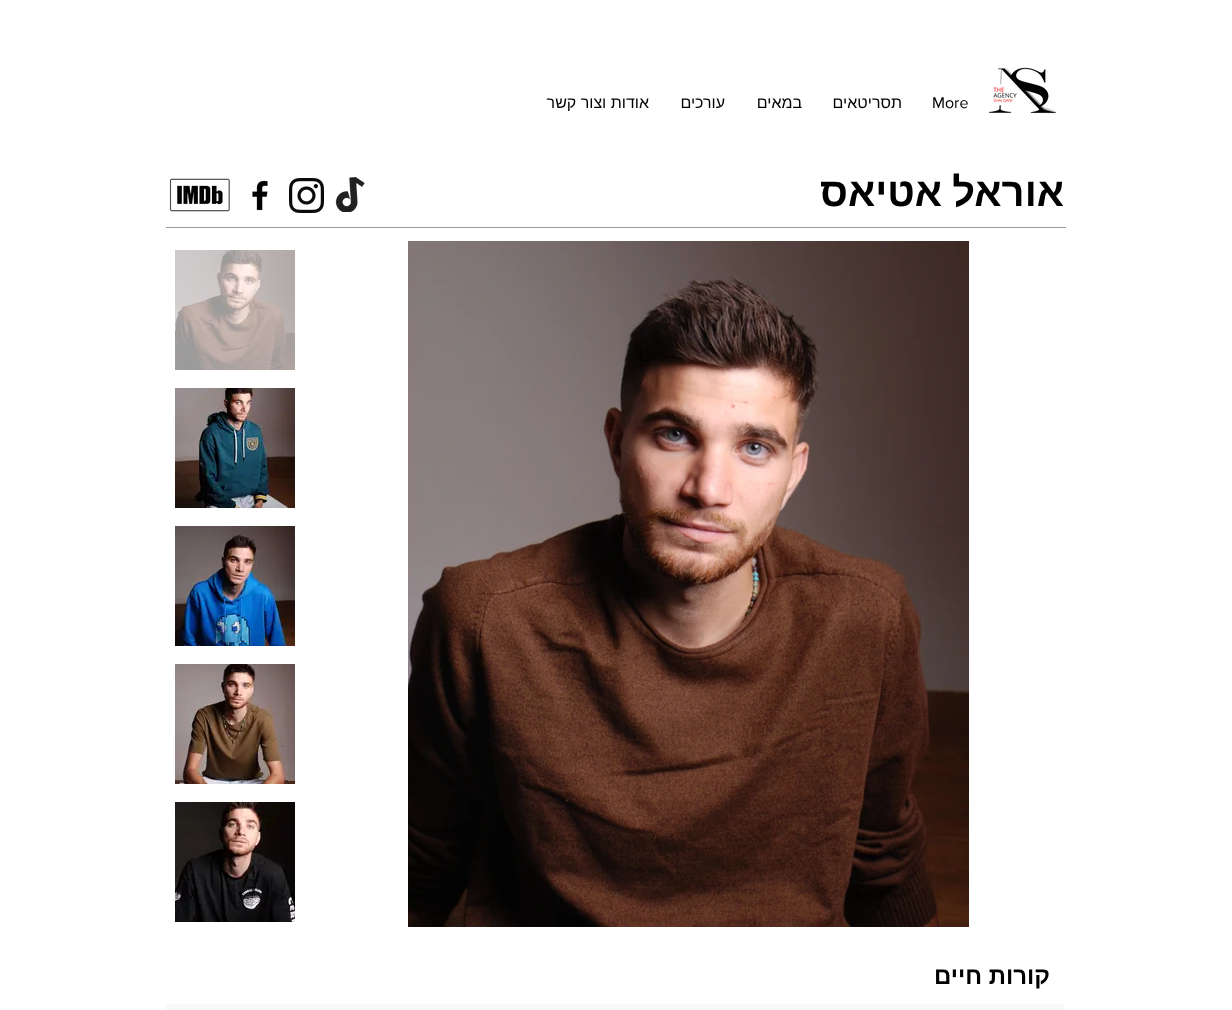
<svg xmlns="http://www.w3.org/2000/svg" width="1232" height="1010">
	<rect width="100%" height="100%" fill="#FFFFFF" />
	<image x="989" y="67" width="67" height="47" href="assets/img1.png" />
	<text x="932" y="108" font-family="'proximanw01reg'" font-size="16" fill="#000000">More</text>
	<g font-family="Liberation Sans" font-size="16" direction="rtl" fill="#000000">
		<text x="902" y="108">תסריטאים</text>
		<text x="802" y="108">במאים</text>
		<text x="725" y="108">עורכים</text>
		<text x="649" y="108">אודות וצור קשר</text>
	</g>
	<text x="1064" y="206" word-spacing="-1" font-family="Liberation Sans" font-size="40" font-weight="700" direction="rtl" fill="#000000">אוראל אטיאס</text>
	<image x="335" y="177" width="30" height="35" href="assets/img2.png" />
	<image x="289" y="178" width="35" height="35" href="assets/img3.png" />
	<image x="252" y="180" width="16" height="31" href="assets/img4.png" />
	<image x="169" y="178" width="61" height="34" href="assets/img5.png" />
	<rect x="166" y="227" width="900" height="1" fill="#999997" />
	<image x="408" y="241" width="561" height="686" href="assets/img6.png" />
	<image x="175" y="250" width="120" height="120" href="assets/img7.png" />
	<image x="175" y="388" width="120" height="120" href="assets/img8.png" />
	<image x="175" y="526" width="120" height="120" href="assets/img9.png" />
	<image x="175" y="664" width="120" height="120" href="assets/img10.png" />
	<image x="175" y="802" width="120" height="120" href="assets/img11.png" />
	<text x="1050" y="984" font-family="Liberation Sans" font-size="24" font-weight="700" direction="rtl" fill="#000000">קורות חיים</text>
	<rect x="166" y="1004" width="898" height="6" fill="#F9F9F9" />
</svg>
